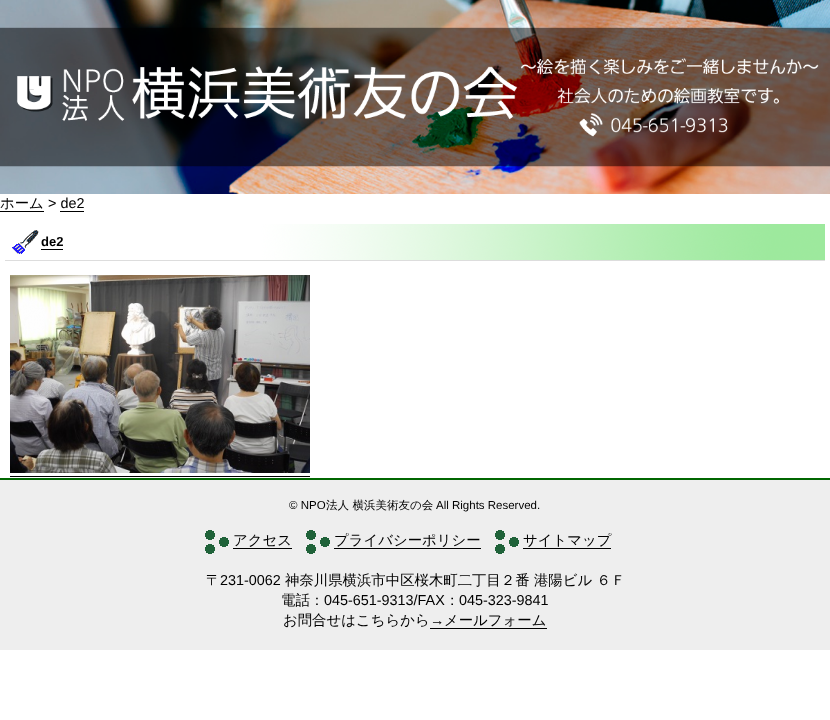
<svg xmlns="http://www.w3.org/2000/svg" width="830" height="720">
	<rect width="100%" height="100%" fill="#FFFFFF" />
	<image x="0" y="0" width="830" height="194" href="assets/img1.png" />
	<text x="0" y="208" font-family="WenQuanYi Zen Hei" font-size="14.4" font-weight="500" fill="#000000">ホーム</text>
	<rect x="0" y="211" width="44" height="1" fill="#000000" />
	<text x="48" y="208" font-family="Liberation Sans" font-size="14.4" fill="#000000">&gt; de2</text>
	<rect x="60" y="211" width="24" height="1" fill="#000000" />
	<image x="12" y="224" width="813" height="36" href="assets/img2.png" />
	<rect x="5" y="260" width="820" height="1" fill="#DDDDDD" />
	<text x="41" y="246" font-family="Liberation Sans" font-size="13" font-weight="700" fill="#000000">de2</text>
	<rect x="41" y="249" width="22" height="1" fill="#000000" />
	<image x="10" y="275" width="300" height="198" href="assets/img3.png" />
	<rect x="10" y="476" width="300" height="1" fill="#000000" />
	<rect x="0" y="480" width="830" height="170" fill="#EEEEEE" />
	<rect x="0" y="478" width="830" height="2" fill="#006600" />
	<text x="289" y="509" font-family="Liberation Sans" font-size="11.5" fill="#000000">© NPO</text>
	<text x="326" y="509" font-family="WenQuanYi Zen Hei" font-size="11.5" font-weight="500" fill="#000000">法人 横浜美術友の会</text>
	<text x="436" y="509" font-family="Liberation Sans" font-size="11.5" fill="#000000">All Rights Reserved.</text>
	<image x="205" y="530" width="24" height="24" href="assets/img4.png" />
	<text x="233" y="545" font-family="WenQuanYi Zen Hei" font-size="14.4" font-weight="500" fill="#000000">アクセス</text>
	<rect x="233" y="548" width="59" height="1" fill="#000000" />
	<image x="306" y="530" width="24" height="24" href="assets/img4.png" />
	<text x="334" y="545" font-family="WenQuanYi Zen Hei" font-size="14.4" font-weight="500" fill="#000000">プライバシーポリシー</text>
	<rect x="334" y="548" width="147" height="1" fill="#000000" />
	<image x="495" y="530" width="24" height="24" href="assets/img4.png" />
	<text x="523" y="545" font-family="WenQuanYi Zen Hei" font-size="14.4" font-weight="500" fill="#000000">サイトマップ</text>
	<rect x="523" y="548" width="88" height="1" fill="#000000" />
	<text x="206" y="585" font-family="WenQuanYi Zen Hei" font-size="14.4" font-weight="500" fill="#000000">〒</text>
	<text x="220" y="585" font-family="Liberation Sans" font-size="14.4" fill="#000000">231-0062</text>
	<g font-family="WenQuanYi Zen Hei" font-size="14.4" font-weight="500" fill="#000000">
		<text x="285" y="585">神奈川県横浜市中区桜木町二丁目２番 港陽ビル ６Ｆ</text>
		<text x="281" y="605">電話：</text>
	</g>
	<text x="324" y="605" font-family="Liberation Sans" font-size="14.4" fill="#000000">045-651-9313/FAX</text>
	<text x="445" y="605" font-family="WenQuanYi Zen Hei" font-size="14.4" font-weight="500" fill="#000000">：</text>
	<text x="459" y="605" font-family="Liberation Sans" font-size="14.4" fill="#000000">045-323-9841</text>
	<text x="283" y="625" font-family="WenQuanYi Zen Hei" font-size="14.4" font-weight="500" fill="#000000">お問合せはこちらから</text>
	<text x="430" y="625" font-family="Liberation Sans" font-size="14.4" fill="#000000">→</text>
	<rect x="430" y="628" width="117" height="1" fill="#000000" />
	<text x="444" y="625" font-family="WenQuanYi Zen Hei" font-size="14.4" font-weight="500" fill="#000000">メールフォーム</text>
</svg>
